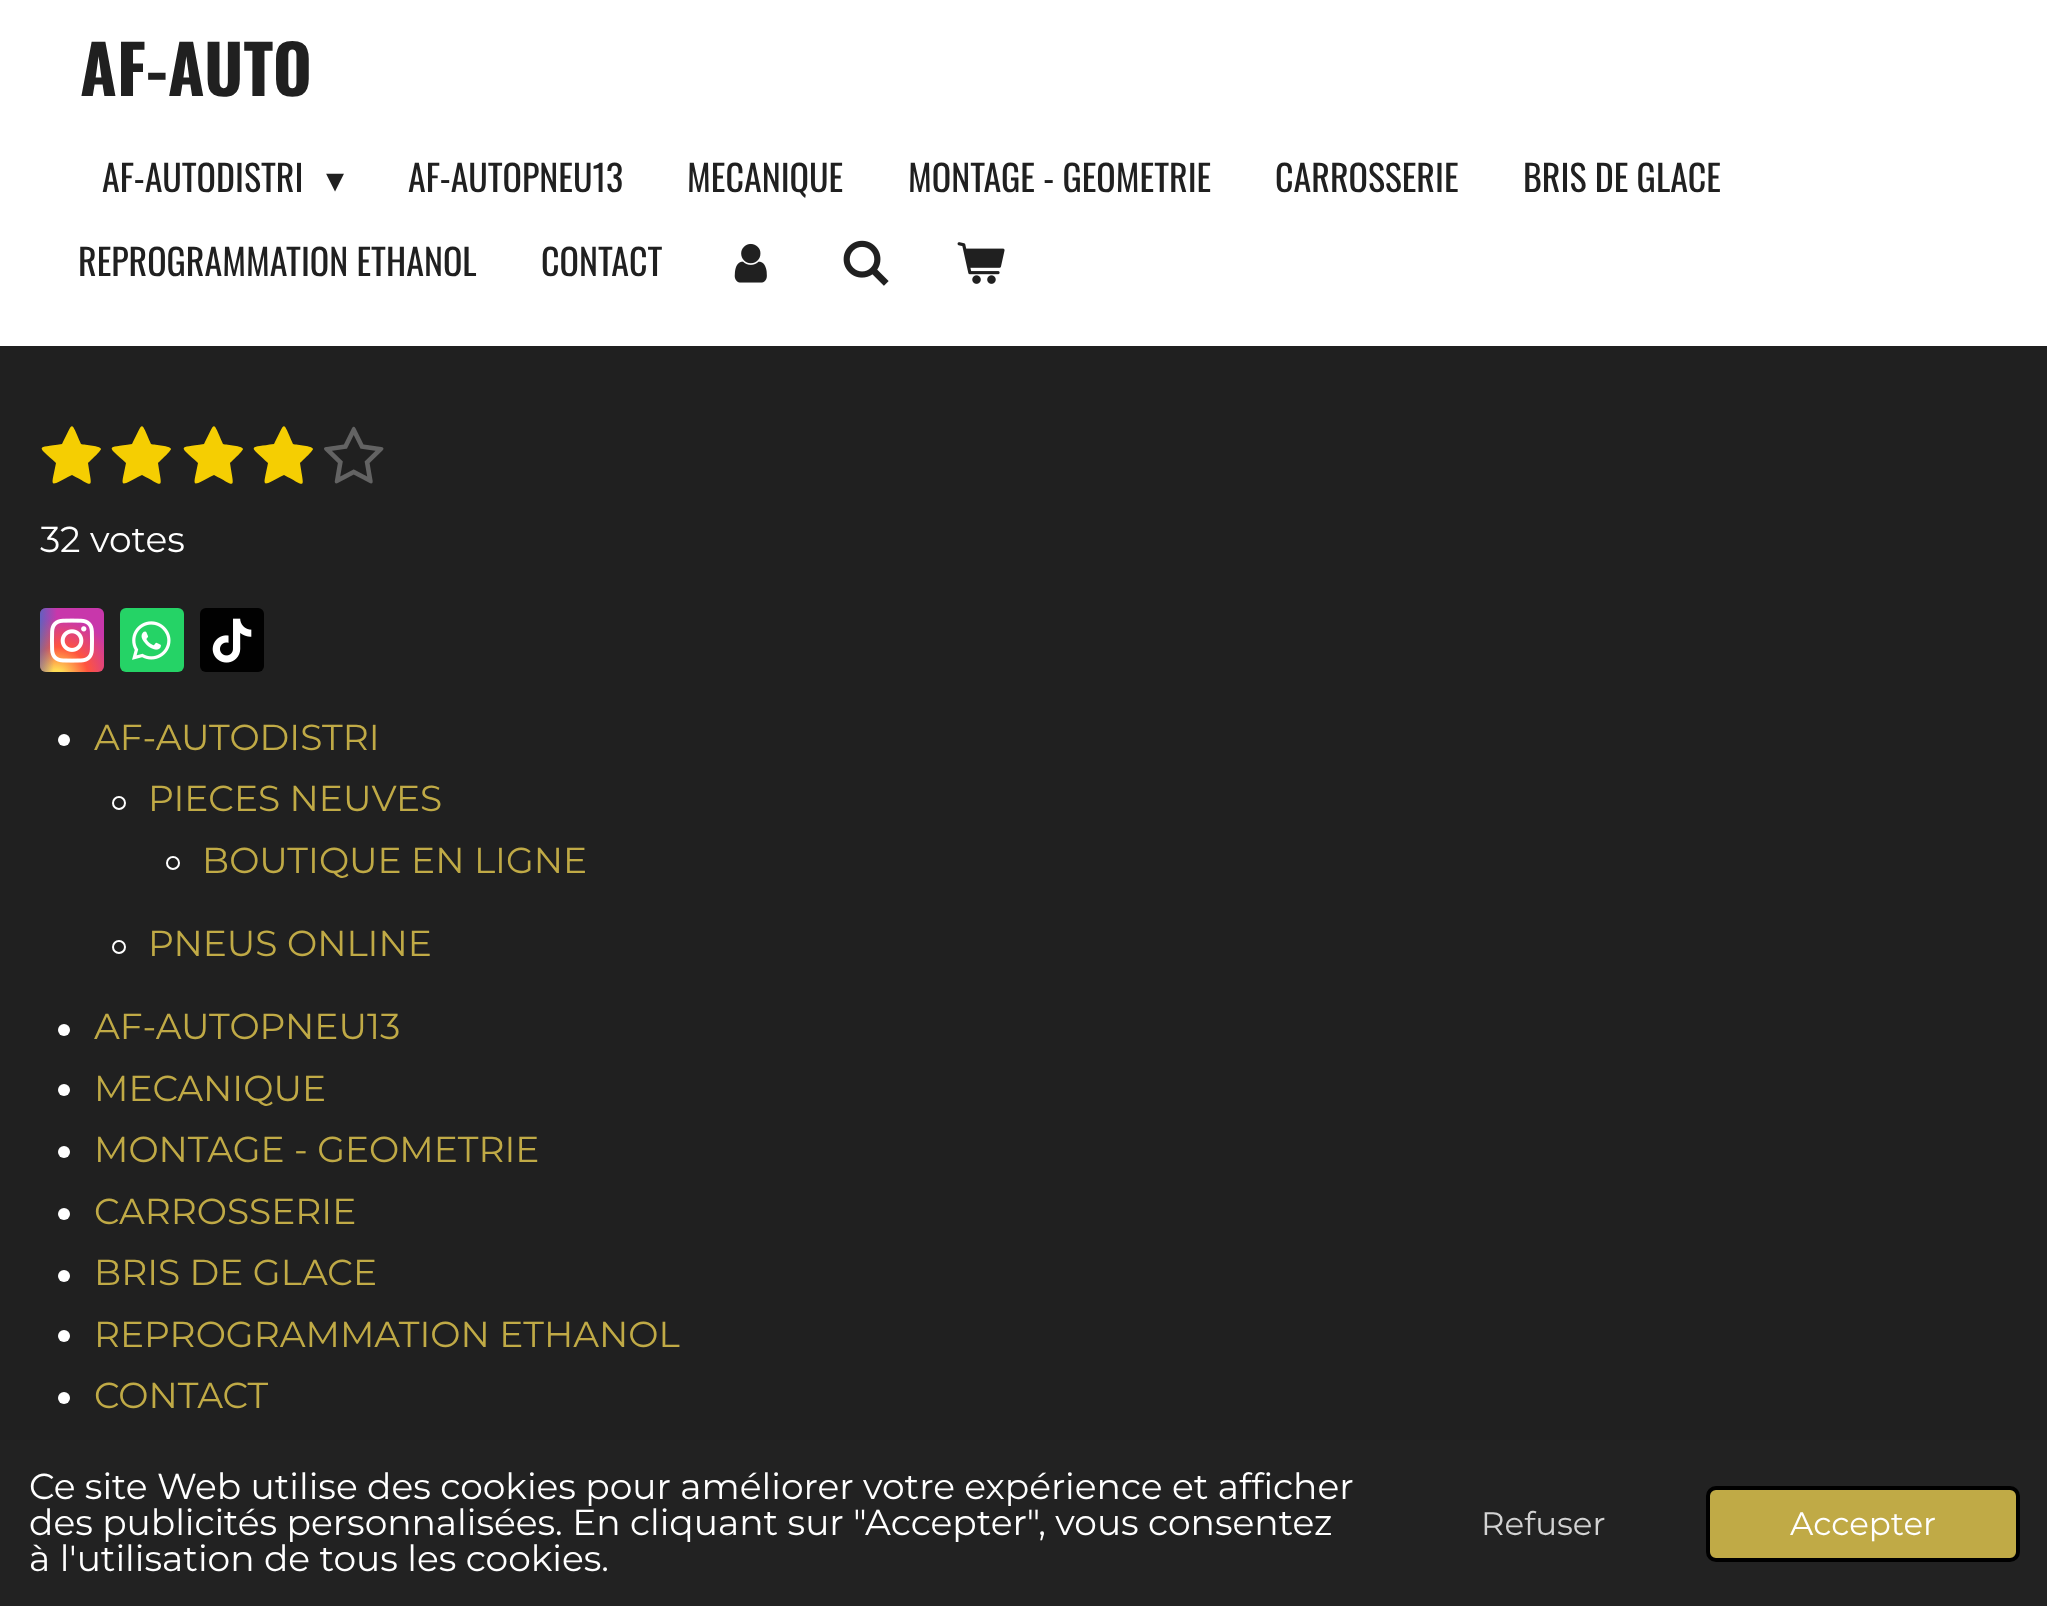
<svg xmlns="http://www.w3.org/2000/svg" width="2047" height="1606">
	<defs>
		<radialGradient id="g1" gradientUnits="userSpaceOnUse" cx="0" cy="0" r="1" gradientTransform="matrix(62 0 0 58 57 676)"><stop offset="0" stop-color="#FFDD55" /><stop offset="0.1" stop-color="#FFDD55" /><stop offset="0.5" stop-color="#FF543E" /><stop offset="1" stop-color="#C837AB" /></radialGradient>
		<radialGradient id="g2" gradientUnits="userSpaceOnUse" cx="0" cy="0" r="1" gradientTransform="matrix(28 0 0 115 29 613)"><stop offset="0" stop-color="#3771C8" /><stop offset="0.13" stop-color="#3771C8" /><stop offset="1" stop-color="#3771C8" stop-opacity="0" /></radialGradient>
	</defs>
	<rect width="100%" height="100%" fill="#FFFFFF" />
	<text x="80" y="96" font-family="Oswald" font-size="67" font-weight="700" fill="#202020">AF-AUTO</text>
	<text x="102" y="192" font-family="Oswald" font-size="36" fill="#202020">AF-AUTODISTRI</text>
	<text x="326" y="192" font-family="DejaVu Sans" font-size="36" fill="#202020">▾</text>
	<g font-family="Oswald" font-size="36" fill="#202020">
		<text x="408" y="192">AF-AUTOPNEU13</text>
		<text x="687" y="192">MECANIQUE</text>
		<text x="908" y="192">MONTAGE - GEOMETRIE</text>
		<text x="1275" y="192">CARROSSERIE</text>
		<text x="1523" y="192">BRIS DE GLACE</text>
		<text x="78" y="276">REPROGRAMMATION ETHANOL</text>
		<text x="541" y="276">CONTACT</text>
	</g>
	<image x="734" y="243" width="33" height="40" href="assets/img1.png" />
	<image x="843" y="240" width="46" height="46" href="assets/img2.png" />
	<image x="957" y="242" width="48" height="42" href="assets/img3.png" />
	<rect x="0" y="346" width="2047" height="1094" fill="#202020" />
	<path d="M101 449C101 451 90 461 88 463C92 490 95 487 72 475C48 487 51 489 56 463C37 445 35 448 62 444C74 421 70 420 81 444C85 445 101 446 101 449Z" fill="#F5CE02" />
	<path d="M171 449C171 451 160 461 158 463C162 490 165 487 142 475C118 487 121 489 126 463C107 445 105 448 132 444C144 421 140 420 151 444C155 445 171 446 171 449Z" fill="#F5CE02" />
	<path d="M243 449C243 451 232 461 230 463C234 490 237 487 214 475C190 487 193 489 198 463C179 445 177 448 204 444C216 421 212 420 223 444C227 445 243 446 243 449Z" fill="#F5CE02" />
	<path d="M313 449C313 451 302 461 300 463C304 490 307 487 284 475C260 487 263 489 268 463C249 445 247 448 274 444C286 421 282 420 293 444C297 445 313 446 313 449Z" fill="#F5CE02" />
	<image x="324" y="426" width="60" height="58" href="assets/img4.png" />
	<text x="40" y="552" font-family="Montserrat" font-size="36" fill="#FFFFFF">32 votes</text>
	<rect x="40" y="608" width="64" height="64" rx="6" fill="url(#g1)" />
	<rect x="40" y="608" width="64" height="64" rx="6" fill="url(#g2)" />
	<image x="50" y="618" width="44" height="45" href="assets/img5.png" />
	<rect x="120" y="608" width="64" height="64" rx="6" fill="#25D366" />
	<image x="132" y="621" width="39" height="39" href="assets/img6.png" />
	<rect x="200" y="608" width="64" height="64" rx="6" fill="#010101" />
	<image x="212" y="618" width="40" height="45" href="assets/img7.png" />
	<circle cx="64" cy="740" r="6" fill="#FFFFFF" />
	<text x="94" y="750" font-family="Montserrat" font-size="36" fill="#C0AA46">AF-AUTODISTRI</text>
	<circle cx="119" cy="803" r="6" fill="none" stroke="#FFFFFF" stroke-width="2" />
	<text x="148" y="811" font-family="Montserrat" font-size="36" fill="#C0AA46">PIECES NEUVES</text>
	<circle cx="173" cy="863" r="6" fill="none" stroke="#FFFFFF" stroke-width="2" />
	<text x="202" y="873" font-family="Montserrat" font-size="36" fill="#C0AA46">BOUTIQUE EN LIGNE</text>
	<circle cx="119" cy="947" r="6" fill="none" stroke="#FFFFFF" stroke-width="2" />
	<text x="148" y="956" font-family="Montserrat" font-size="36" fill="#C0AA46">PNEUS ONLINE</text>
	<circle cx="64" cy="1030" r="6" fill="#FFFFFF" />
	<text x="94" y="1039" font-family="Montserrat" font-size="36" fill="#C0AA46">AF-AUTOPNEU13</text>
	<circle cx="64" cy="1090" r="6" fill="#FFFFFF" />
	<text x="94" y="1101" font-family="Montserrat" font-size="36" fill="#C0AA46">MECANIQUE</text>
	<circle cx="64" cy="1152" r="6" fill="#FFFFFF" />
	<text x="94" y="1162" font-family="Montserrat" font-size="36" fill="#C0AA46">MONTAGE - GEOMETRIE</text>
	<circle cx="64" cy="1214" r="6" fill="#FFFFFF" />
	<text x="94" y="1224" font-family="Montserrat" font-size="36" fill="#C0AA46">CARROSSERIE</text>
	<circle cx="64" cy="1276" r="6" fill="#FFFFFF" />
	<text x="94" y="1285" font-family="Montserrat" font-size="36" fill="#C0AA46">BRIS DE GLACE</text>
	<circle cx="64" cy="1336" r="6" fill="#FFFFFF" />
	<text x="94" y="1347" font-family="Montserrat" font-size="36" fill="#C0AA46">REPROGRAMMATION ETHANOL</text>
	<circle cx="64" cy="1398" r="6" fill="#FFFFFF" />
	<text x="94" y="1408" font-family="Montserrat" font-size="36" fill="#C0AA46">CONTACT</text>
	<rect x="0" y="1440" width="2047" height="166" fill="#222222" />
	<g font-family="Montserrat" font-size="36" fill="#FFFFFF">
		<text x="29" y="1499">Ce site Web utilise des cookies pour améliorer votre expérience et afficher</text>
		<text x="29" y="1535">des publicités personnalisées. En cliquant sur "Accepter", vous consentez</text>
		<text x="29" y="1571">à l'utilisation de tous les cookies.</text>
	</g>
	<text x="1481" y="1535" font-family="Montserrat" font-size="32.5" fill="#D3D3D3">Refuser</text>
	<rect x="1708" y="1488" width="310" height="72" rx="8" fill="#C0AA46" stroke="#000000" stroke-width="4" />
	<text x="1790" y="1535" font-family="Montserrat" font-size="32.5" fill="#FFFFFF">Accepter</text>
</svg>
